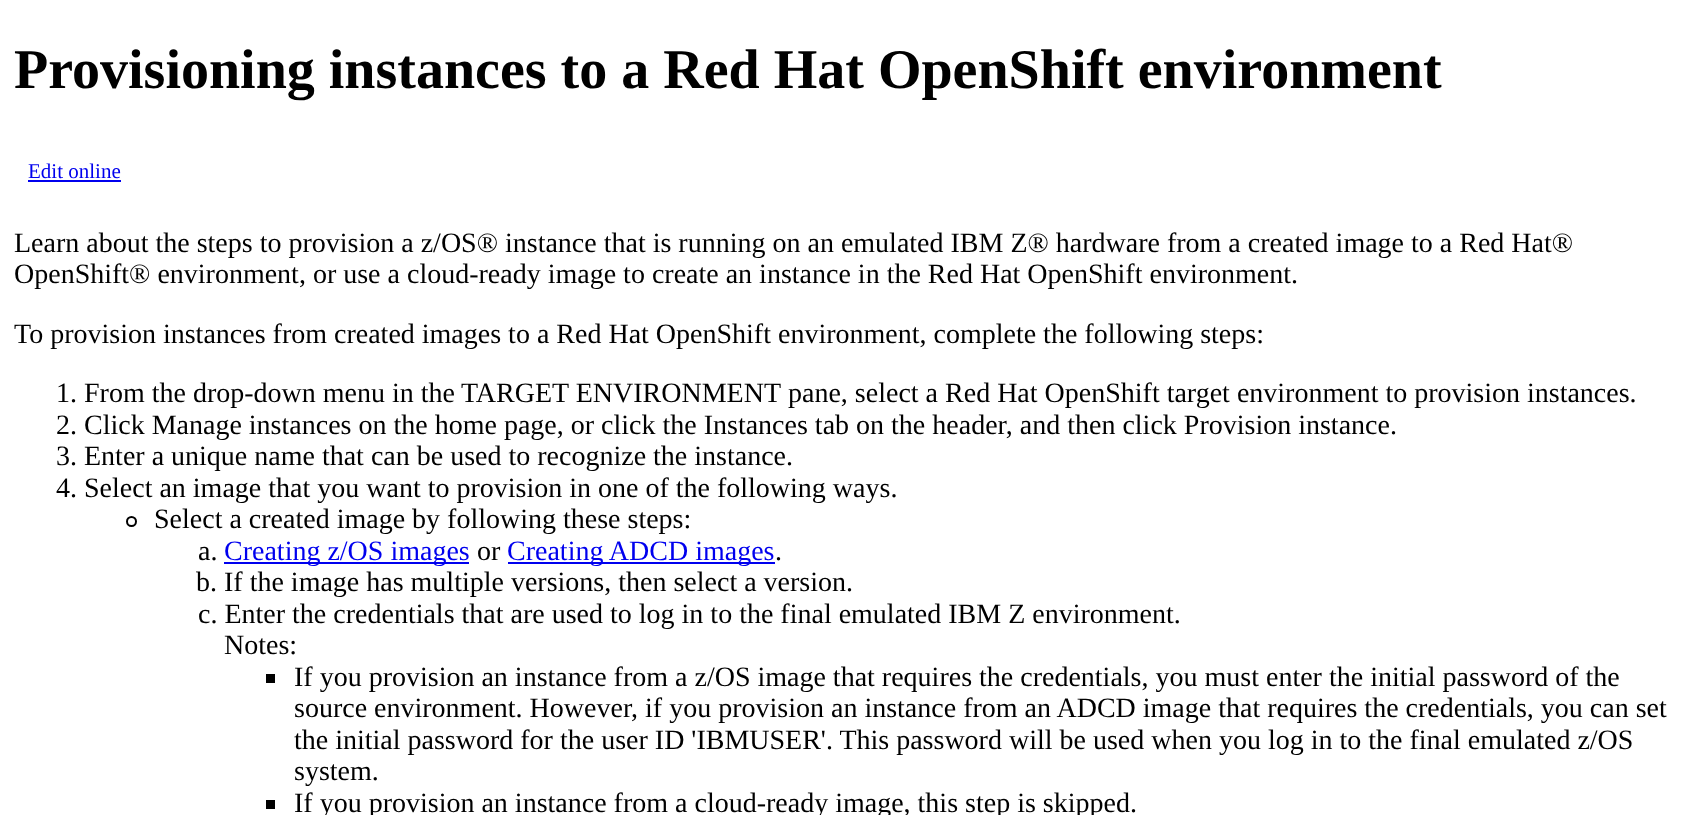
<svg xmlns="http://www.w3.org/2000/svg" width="1688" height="815">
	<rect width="100%" height="100%" fill="#FFFFFF" />
	<text x="14" y="88" font-family="Liberation Serif" font-size="56" font-weight="700" fill="#000000">Provisioning instances to a Red Hat OpenShift environment</text>
	<text x="28" y="178" font-family="Liberation Serif" font-size="21" fill="#0000EE">Edit online</text>
	<rect x="28" y="180" width="93" height="2" fill="#0000EE" />
	<g font-family="Liberation Serif" font-size="28" fill="#000000">
		<text x="14" y="252">Learn about the steps to provision a z/OS® instance that is running on an emulated IBM Z® hardware from a created image to a Red Hat®</text>
		<text x="14" y="283">OpenShift® environment, or use a cloud-ready image to create an instance in the Red Hat OpenShift environment.</text>
		<text x="14" y="343">To provision instances from created images to a Red Hat OpenShift environment, complete the following steps:</text>
		<text x="56" y="402">1. From the drop-down menu in the</text>
		<text x="461" y="402">TARGET ENVIRONMENT</text>
		<text x="788" y="402">pane, select a Red Hat OpenShift target environment to provision instances.</text>
		<text x="56" y="434">2. Click Manage instances on the home page, or click the Instances tab on the header, and then click Provision instance.</text>
		<text x="56" y="465">3. Enter a unique name that can be used to recognize the instance.</text>
		<text x="56" y="497">4. Select an image that you want to provision in one of the following ways.</text>
	</g>
	<circle cx="131.5" cy="521.5" r="4.5" fill="none" stroke="#000000" stroke-width="2" />
	<g font-family="Liberation Serif" font-size="28" fill="#000000">
		<text x="154" y="528">Select a created image by following these steps:</text>
		<text x="198" y="560">a.</text>
	</g>
	<rect x="224" y="562" width="245" height="2" fill="#0000EE" />
	<text x="224" y="560" font-family="Liberation Serif" font-size="28" fill="#0000EE">Creating z/OS images</text>
	<text x="477" y="560" font-family="Liberation Serif" font-size="28" fill="#000000">or</text>
	<rect x="508" y="562" width="267" height="2" fill="#0000EE" />
	<text x="507" y="560" font-family="Liberation Serif" font-size="28" fill="#0000EE">Creating ADCD images</text>
	<g font-family="Liberation Serif" font-size="28" fill="#000000">
		<text x="775" y="560">.</text>
		<text x="196" y="591">b. If the image has multiple versions, then select a version.</text>
		<text x="198" y="623">c. Enter the credentials that are used to log in to the final emulated IBM Z environment.</text>
		<text x="224" y="654">Notes:</text>
	</g>
	<rect x="266" y="674" width="9" height="9" fill="#000000" />
	<g font-family="Liberation Serif" font-size="28" fill="#000000">
		<text x="294" y="686">If you provision an instance from a z/OS image that requires the credentials, you must enter the initial password of the</text>
		<text x="294" y="717">source environment. However, if you provision an instance from an ADCD image that requires the credentials, you can set</text>
		<text x="294" y="749">the initial password for the user ID 'IBMUSER'. This password will be used when you log in to the final emulated z/OS</text>
		<text x="294" y="780">system.</text>
	</g>
	<rect x="266" y="800" width="9" height="9" fill="#000000" />
	<text x="294" y="812" font-family="Liberation Serif" font-size="28" fill="#000000">If you provision an instance from a cloud-ready image, this step is skipped.</text>
</svg>
